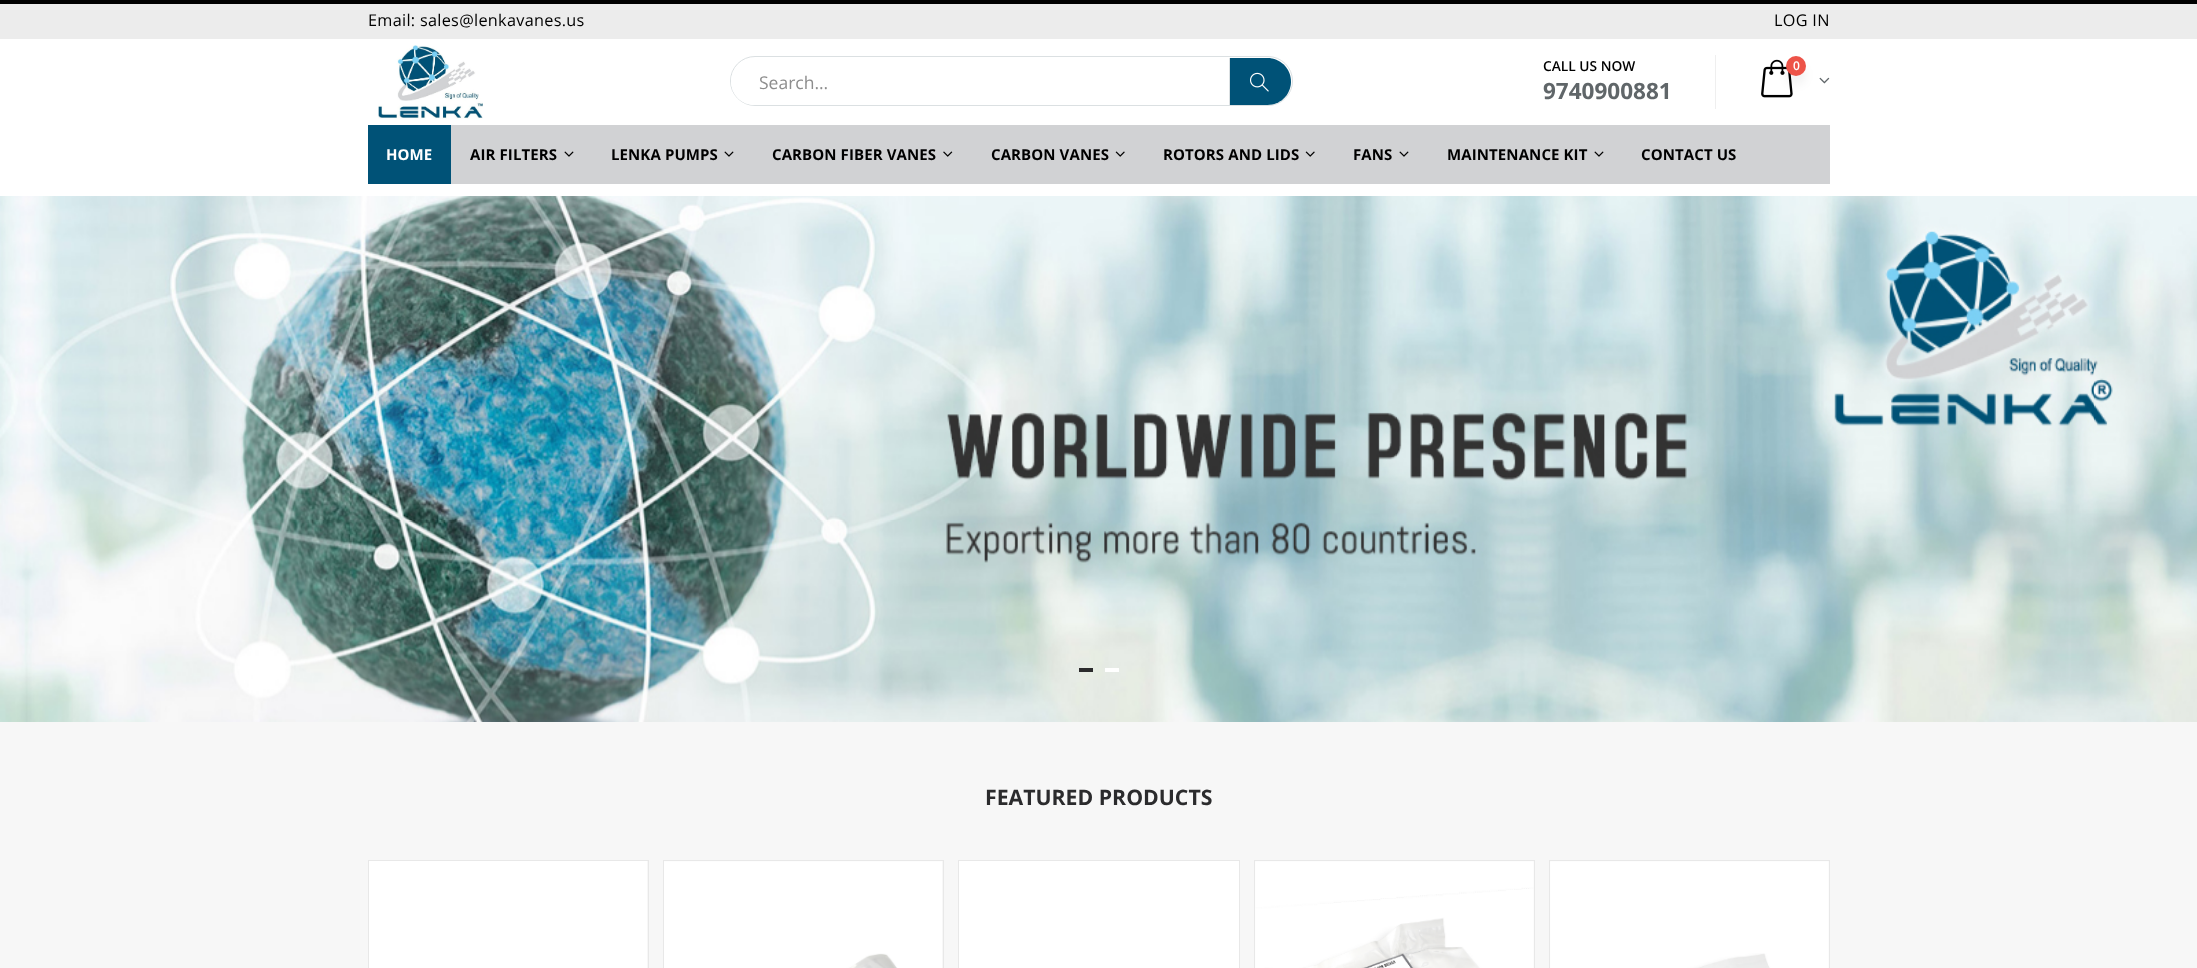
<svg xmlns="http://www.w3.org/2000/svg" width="2197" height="968">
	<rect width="100%" height="100%" fill="#FFFFFF" />
	<rect x="0" y="0" width="2197" height="4" fill="#000000" />
	<rect x="0" y="4" width="2197" height="35" fill="#ECECEC" />
	<g font-family="Open Sans" font-size="16.25" letter-spacing="0.3" fill="#000000">
		<text x="368" y="26">Email: sales@lenkavanes.us</text>
		<text x="1774" y="26">LOG IN</text>
	</g>
	<image x="378" y="45" width="105" height="74" href="assets/img1.png" />
	<rect x="730.5" y="56.5" width="562" height="49" rx="24.5" fill="none" stroke="#DBE0E2" />
	<path d="M754.5 58H1229V105H754.5C741.5 105 731 94.5 731 81.5C731 68.5 741.5 58 754.5 58Z" fill="#FFFFFF" />
	<text x="759" y="89" font-family="Open Sans" font-size="17.5" fill="#8D8D8D">Search...</text>
	<path d="M1229 58H1267.5C1280.5 58 1291 68.5 1291 81.5C1291 94.5 1280.5 105 1267.5 105H1229Z" fill="#005277" />
	<rect x="1229" y="58" width="1" height="47" fill="#DBE0E2" />
	<image x="1250" y="72" width="19" height="20" href="assets/img2.png" />
	<text x="1543" y="71" font-family="Open Sans" font-size="13.75" font-weight="600" fill="#000000">CALL US NOW</text>
	<rect x="1715" y="55" width="1" height="54" fill="#EFEFEF" />
	<text x="1543" y="99" font-family="Open Sans" font-size="22.5" font-weight="700" fill="#606669">9740900881</text>
	<image x="1761" y="59" width="32" height="39" href="assets/img3.png" />
	<rect x="1786" y="65" width="20" height="20" rx="10" fill="#000000" fill-opacity="0.05" filter="blur(5px)" />
	<circle cx="1796" cy="66" r="10" fill="#ED5348" />
	<text x="1793" y="70" font-family="Open Sans" font-size="12" font-weight="600" fill="#FFFFFF">0</text>
	<image x="1819" y="77" width="11" height="7" href="assets/img4.png" />
	<rect x="451" y="125" width="1379" height="59" fill="#D1D2D4" />
	<rect x="368" y="125" width="83" height="59" fill="#005277" />
	<text x="386" y="160" font-family="Open Sans" font-size="15" font-weight="700" letter-spacing="0.1" fill="#FFFFFF">HOME</text>
	<text x="470" y="160" font-family="Open Sans" font-size="15" font-weight="700" letter-spacing="0.1" fill="#000000">AIR FILTERS</text>
	<image x="564" y="151" width="10" height="6" href="assets/img5.png" />
	<text x="611" y="160" font-family="Open Sans" font-size="15" font-weight="700" letter-spacing="0.1" fill="#000000">LENKA PUMPS</text>
	<image x="724" y="151" width="10" height="6" href="assets/img5.png" />
	<text x="772" y="160" font-family="Open Sans" font-size="15" font-weight="700" letter-spacing="0.1" fill="#000000">CARBON FIBER VANES</text>
	<image x="943" y="151" width="10" height="6" href="assets/img6.png" />
	<text x="991" y="160" font-family="Open Sans" font-size="15" font-weight="700" letter-spacing="0.1" fill="#000000">CARBON VANES</text>
	<image x="1115" y="151" width="10" height="6" href="assets/img7.png" />
	<text x="1163" y="160" font-family="Open Sans" font-size="15" font-weight="700" letter-spacing="0.1" fill="#000000">ROTORS AND LIDS</text>
	<image x="1305" y="151" width="10" height="6" href="assets/img7.png" />
	<text x="1353" y="160" font-family="Open Sans" font-size="15" font-weight="700" letter-spacing="0.1" fill="#000000">FANS</text>
	<image x="1399" y="151" width="10" height="6" href="assets/img5.png" />
	<text x="1447" y="160" font-family="Open Sans" font-size="15" font-weight="700" letter-spacing="0.1" fill="#000000">MAINTENANCE KIT</text>
	<image x="1594" y="151" width="10" height="6" href="assets/img5.png" />
	<text x="1641" y="160" font-family="Open Sans" font-size="15" font-weight="700" letter-spacing="0.1" fill="#000000">CONTACT US</text>
	<image x="0" y="196" width="2197" height="526" href="assets/img8.png" />
	<rect x="1079" y="668" width="14" height="4" fill="#2B2B2C" />
	<rect x="1105" y="668" width="14" height="4" fill="#FFFFFF" />
	<rect x="0" y="722" width="2197" height="246" fill="#F7F7F7" />
	<text x="985" y="805" font-family="Open Sans" font-size="21.25" font-weight="700" fill="#2B2B2D">FEATURED PRODUCTS</text>
	<rect x="368.5" y="860.5" width="280" height="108" fill="none" stroke="#E8E8E8" />
	<rect x="369" y="861" width="278" height="107" fill="#FFFFFF" />
	<rect x="663.5" y="860.5" width="280" height="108" fill="none" stroke="#E8E8E8" />
	<image x="664" y="861" width="278" height="107" href="assets/img9.png" />
	<rect x="958.5" y="860.5" width="281" height="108" fill="none" stroke="#E8E8E8" />
	<rect x="959" y="861" width="280" height="107" fill="#FFFFFF" />
	<rect x="1254.5" y="860.5" width="280" height="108" fill="none" stroke="#E8E8E8" />
	<image x="1255" y="861" width="279" height="107" href="assets/img10.png" />
	<rect x="1549.5" y="860.5" width="280" height="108" fill="none" stroke="#E8E8E8" />
	<image x="1550" y="861" width="279" height="107" href="assets/img11.png" />
</svg>
